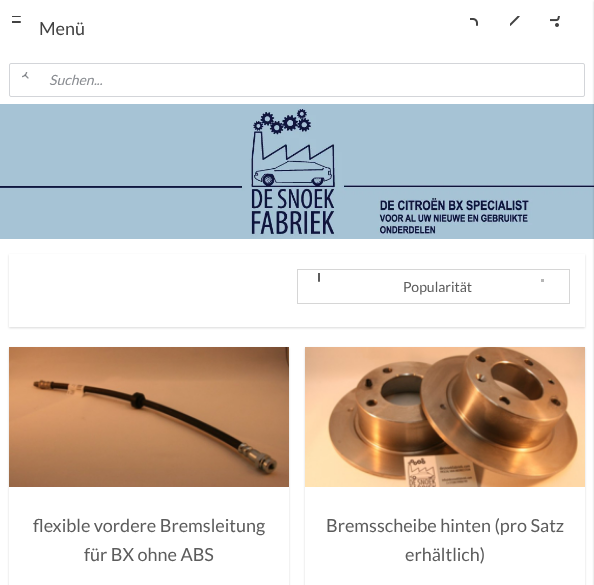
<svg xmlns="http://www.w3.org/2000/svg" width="594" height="585">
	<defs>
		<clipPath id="clip1"><path d="M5 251H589V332H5ZM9 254H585V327H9Z" clip-rule="evenodd" /></clipPath>
		<clipPath id="clip2"><path d="M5 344H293V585H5ZM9 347H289V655H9Z" clip-rule="evenodd" /></clipPath>
		<clipPath id="clip3"><path d="M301 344H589V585H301ZM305 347H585V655H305Z" clip-rule="evenodd" /></clipPath>
	</defs>
	<rect width="100%" height="100%" fill="#FFFFFF" />
	<image x="12" y="16" width="9" height="7" href="assets/img1.png" />
	<text x="39" y="35" font-family="Lato" font-size="18" fill="#424242">Menü</text>
	<image x="470" y="18" width="8" height="8" href="assets/img2.png" />
	<image x="510" y="16" width="10" height="10" href="assets/img3.png" />
	<image x="550" y="16" width="10" height="11" href="assets/img4.png" />
	<rect x="9.5" y="63.5" width="575" height="33" rx="1.5" fill="none" stroke="#D3D5D9" />
	<image x="22" y="72" width="7" height="7" href="assets/img5.png" />
	<text x="49" y="85" font-family="Lato" font-size="14" font-style="italic" fill="#898C91">Suchen...</text>
	<image x="0" y="104" width="594" height="135" href="assets/img6.png" />
	<rect x="594" y="1" width="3" height="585" fill="#000000" fill-opacity="0.2" filter="blur(1px)" />
	<g clip-path="url(#clip1)">
		<rect x="9" y="255" width="576" height="73" fill="#000000" fill-opacity="0.15" filter="blur(1px)" />
	</g>
	<rect x="297.5" y="269.5" width="272" height="34" fill="none" stroke="#D6D6D6" />
	<image x="318" y="273" width="2" height="9" href="assets/img7.png" />
	<rect x="541" y="279" width="3" height="3" fill="#B6B6B6" />
	<text x="403" y="292" font-family="Lato" font-size="14" fill="#5C5C5C">Popularität</text>
	<g clip-path="url(#clip2)">
		<rect x="9" y="348" width="280" height="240" fill="#000000" fill-opacity="0.15" filter="blur(1px)" />
	</g>
	<image x="9" y="347" width="280" height="140" href="assets/img8.png" />
	<g font-family="Lato" font-size="18" fill="#5C5C5C">
		<text x="33" y="532">flexible vordere Bremsleitung</text>
		<text x="84" y="561">für BX ohne ABS</text>
	</g>
	<g clip-path="url(#clip3)">
		<rect x="305" y="348" width="280" height="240" fill="#000000" fill-opacity="0.15" filter="blur(1px)" />
	</g>
	<image x="305" y="347" width="280" height="140" href="assets/img9.png" />
	<g font-family="Lato" font-size="18" fill="#5C5C5C">
		<text x="326" y="532">Bremsscheibe hinten (pro Satz</text>
		<text x="405" y="561">erhältlich)</text>
	</g>
</svg>
